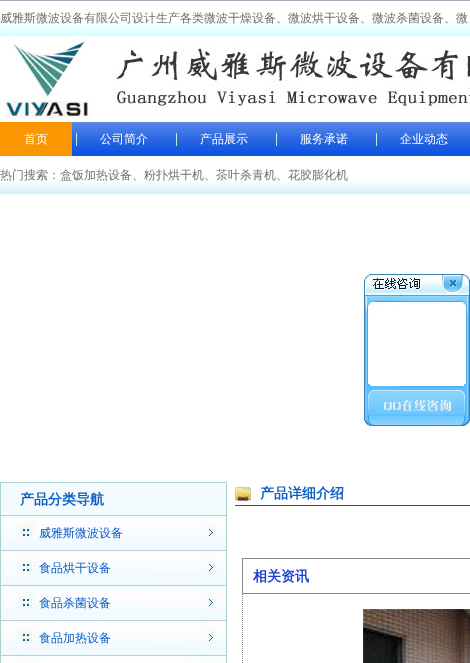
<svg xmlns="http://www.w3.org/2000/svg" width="470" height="663">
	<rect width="100%" height="100%" fill="#FFFFFF" />
	<image x="0" y="0" width="470" height="194" href="assets/img1.png" />
	<text x="0" y="22" font-family="WenQuanYi Zen Hei" font-size="12" font-weight="500" fill="#707070">威雅斯微波设备有限公司设计生产各类微波干燥设备、微波烘干设备、微波杀菌设备、微</text>
	<image x="0" y="38" width="470" height="80" href="assets/img2.png" />
	<rect x="0" y="122" width="72" height="34" fill="#FA9600" />
	<text x="24" y="143" font-family="WenQuanYi Zen Hei" font-size="12" font-weight="500" fill="#FFFFFF">首页</text>
	<image x="76" y="130" width="1" height="22" href="assets/img3.png" />
	<text x="100" y="143" font-family="WenQuanYi Zen Hei" font-size="12" font-weight="500" fill="#FFFFFF">公司简介</text>
	<image x="176" y="130" width="1" height="22" href="assets/img3.png" />
	<text x="200" y="143" font-family="WenQuanYi Zen Hei" font-size="12" font-weight="500" fill="#FFFFFF">产品展示</text>
	<image x="276" y="130" width="1" height="22" href="assets/img3.png" />
	<text x="300" y="143" font-family="WenQuanYi Zen Hei" font-size="12" font-weight="500" fill="#FFFFFF">服务承诺</text>
	<image x="376" y="130" width="1" height="22" href="assets/img3.png" />
	<text x="400" y="143" font-family="WenQuanYi Zen Hei" font-size="12" font-weight="500" fill="#FFFFFF">企业动态</text>
	<text x="0" y="179" font-family="WenQuanYi Zen Hei" font-size="12" font-weight="500" fill="#707070">热门搜索：盒饭加热设备、粉扑烘干机、茶叶杀青机、花胶膨化机</text>
	<image x="364" y="274" width="106" height="40" href="assets/img4.png" />
	<image x="364" y="314" width="4" height="68" href="assets/img5.png" />
	<image x="466" y="314" width="4" height="68" href="assets/img6.png" />
	<image x="364" y="382" width="106" height="44" href="assets/img7.png" />
	<rect x="0.5" y="482.5" width="226" height="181" fill="none" stroke="#ABD3D2" />
	<rect x="1" y="483" width="225" height="32" fill="#F3FBFE" />
	<rect x="1" y="515" width="225" height="1" fill="#ABD3D2" />
	<text x="20" y="504" font-family="WenQuanYi Zen Hei" font-size="14" font-weight="700" fill="#0B5DC3">产品分类导航</text>
	<image x="1" y="516" width="225" height="35" href="assets/img8.png" />
	<text x="39" y="537" font-family="WenQuanYi Zen Hei" font-size="12" font-weight="500" fill="#0B5DC3">威雅斯微波设备</text>
	<image x="1" y="551" width="225" height="35" href="assets/img8.png" />
	<text x="39" y="572" font-family="WenQuanYi Zen Hei" font-size="12" font-weight="500" fill="#0B5DC3">食品烘干设备</text>
	<image x="1" y="586" width="225" height="35" href="assets/img8.png" />
	<text x="39" y="607" font-family="WenQuanYi Zen Hei" font-size="12" font-weight="500" fill="#0B5DC3">食品杀菌设备</text>
	<image x="1" y="621" width="225" height="35" href="assets/img8.png" />
	<text x="39" y="642" font-family="WenQuanYi Zen Hei" font-size="12" font-weight="500" fill="#0B5DC3">食品加热设备</text>
	<image x="1" y="656" width="225" height="7" href="assets/img9.png" />
	<image x="235" y="487" width="16" height="15" href="assets/img10.png" />
	<rect x="235" y="505" width="235" height="1" fill="#0D51DA" />
	<text x="260" y="498" font-family="WenQuanYi Zen Hei" font-size="14" font-weight="700" fill="#0B5DC3">产品详细介绍</text>
	<rect x="242.5" y="558.5" width="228" height="35" fill="none" stroke="#898989" />
	<text x="253" y="581" font-family="WenQuanYi Zen Hei" font-size="14" font-weight="700" fill="#1840D3">相关资讯</text>
	<path d="M242.5 594V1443" fill="none" stroke="#898989" stroke-dasharray="1 1" />
	<image x="363" y="609" width="107" height="54" href="assets/img11.png" />
</svg>
